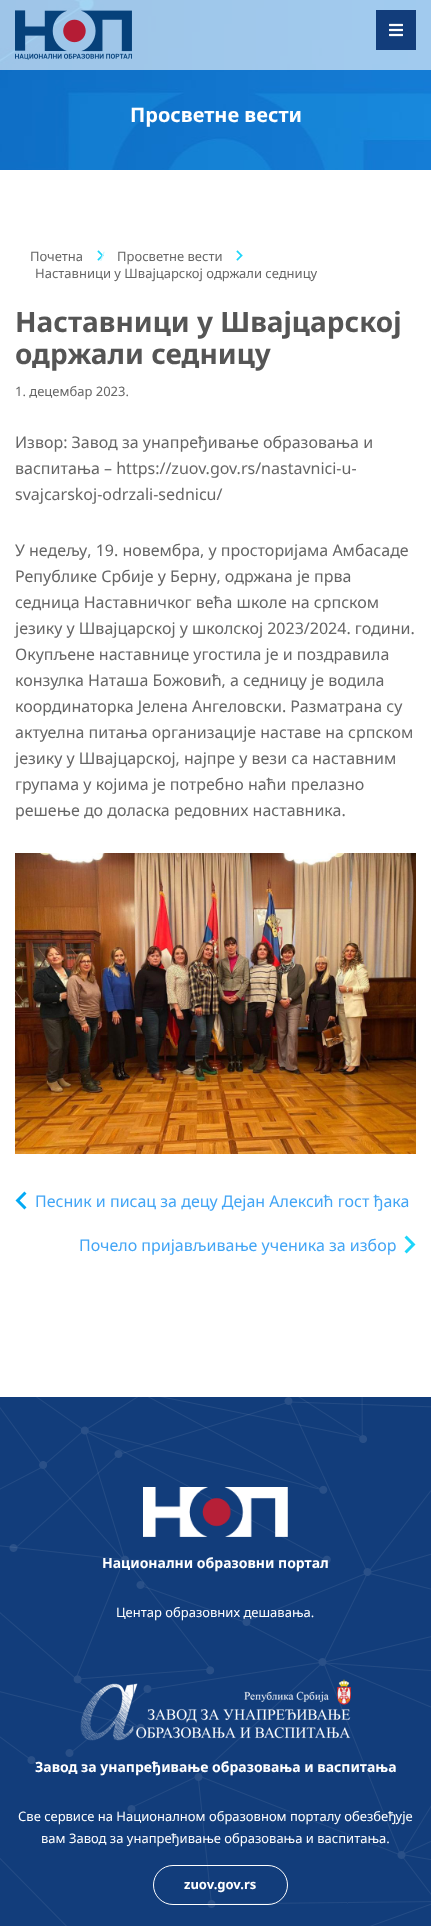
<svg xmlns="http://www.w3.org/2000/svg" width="431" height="1926">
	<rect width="100%" height="100%" fill="#FFFFFF" />
	<image x="0" y="0" width="431" height="170" href="assets/img3.png" />
	<rect x="0" y="0" width="431" height="70" fill="#FFFFFF" fill-opacity="0.6" />
	<image x="15" y="10" width="117" height="50" href="assets/img1.png" />
	<rect x="376" y="10" width="40" height="40" fill="#123D7B" />
	<image x="389" y="23" width="14" height="14" href="assets/img2.png" />
	<text x="130" y="122" font-family="Noto Sans" font-size="20" font-weight="700" fill="#FFFFFF">Просветне вести</text>
	<text x="30" y="261" font-family="Noto Sans" font-size="13" fill="#666666">Почетна</text>
	<image x="97" y="250" width="7" height="11" href="assets/img4.png" />
	<text x="100" y="261" font-family="Noto Sans" font-size="13" fill="#CDF6FE">/</text>
	<text x="117" y="261" font-family="Noto Sans" font-size="13" fill="#666666">Просветне вести</text>
	<image x="236" y="250" width="7" height="11" href="assets/img5.png" />
	<text x="35" y="278" font-family="Noto Sans" font-size="13" fill="#666666">Наставници у Швајцарској одржали седницу</text>
	<g font-family="Noto Sans" font-size="28" font-weight="700" fill="#555555">
		<text x="15" y="332">Наставници у Швајцарској</text>
		<text x="15" y="364">одржали седницу</text>
	</g>
	<text x="15" y="396" font-family="Noto Sans" font-size="13" fill="#666666">1. децембар 2023.</text>
	<g font-family="Noto Sans" font-size="16" fill="#666666">
		<text x="15" y="448">Извор: Завод за унапређивање образовања и</text>
		<text x="15" y="474">васпитања – https://zuov.gov.rs/nastavnici-u-</text>
		<text x="15" y="500">svajcarskoj-odrzali-sednicu/</text>
		<text x="15" y="556">У недељу, 19. новембра, у просторијама Амбасаде</text>
		<text x="15" y="582">Републике Србије у Берну, одржана је прва</text>
		<text x="15" y="608">седница Наставничког већа школе на српском</text>
		<text x="15" y="634">језику у Швајцарској у школској 2023/2024. години.</text>
		<text x="15" y="660">Окупљене наставнице угостила је и поздравила</text>
		<text x="15" y="686">конзулка Наташа Божовић, а седницу је водила</text>
		<text x="15" y="712">координаторка Јелена Ангеловски. Разматрана су</text>
		<text x="15" y="738">актуелна питања организације наставе на српском</text>
		<text x="15" y="764">језику у Швајцарској, најпре у вези са наставним</text>
		<text x="15" y="790">групама у којима је потребно наћи прелазно</text>
		<text x="15" y="816">решење до доласка редовних наставника.</text>
	</g>
	<image x="15" y="853" width="401" height="301" href="assets/img6.png" />
	<image x="15" y="1191" width="12" height="19" href="assets/img7.png" />
	<text x="35" y="1207" font-family="Noto Sans" font-size="16" fill="#42A5F5">Песник и писац за децу Дејан Алексић гост ђака</text>
	<image x="404" y="1235" width="12" height="19" href="assets/img8.png" />
	<text x="79" y="1251" font-family="Noto Sans" font-size="16" fill="#42A5F5">Почело пријављивање ученика за избор</text>
	<rect x="0" y="1397" width="431" height="529" fill="#123D7B" />
	<image x="0" y="1397" width="367" height="529" href="assets/img9.png" />
	<image x="9" y="1397" width="422" height="529" href="assets/img10.png" />
	<image x="143" y="1487" width="145" height="50" href="assets/img11.png" />
	<text x="102" y="1568" font-family="Noto Sans" font-size="14" font-weight="700" fill="#FFFFFF">Национални образовни портал</text>
	<text x="116" y="1617" font-family="Noto Sans" font-size="13" fill="#FFFFFF">Центар образовних дешавања.</text>
	<image x="80" y="1679" width="271" height="62" href="assets/img12.png" />
	<text x="35" y="1772" font-family="Noto Sans" font-size="14" font-weight="700" fill="#FFFFFF">Завод за унапређивање образовања и васпитања</text>
	<g font-family="Noto Sans" font-size="13" fill="#FFFFFF">
		<text x="18" y="1821">Све сервисе на Националном образовном порталу обезбеђује</text>
		<text x="41" y="1843">вам Завод за унапређивање образовања и васпитања.</text>
	</g>
	<rect x="153.5" y="1865.5" width="134" height="39" rx="19.5" fill="none" stroke="#FFFFFF" />
	<text x="184" y="1889" font-family="Noto Sans" font-size="13" font-weight="700" fill="#FFFFFF">zuov.gov.rs</text>
</svg>
